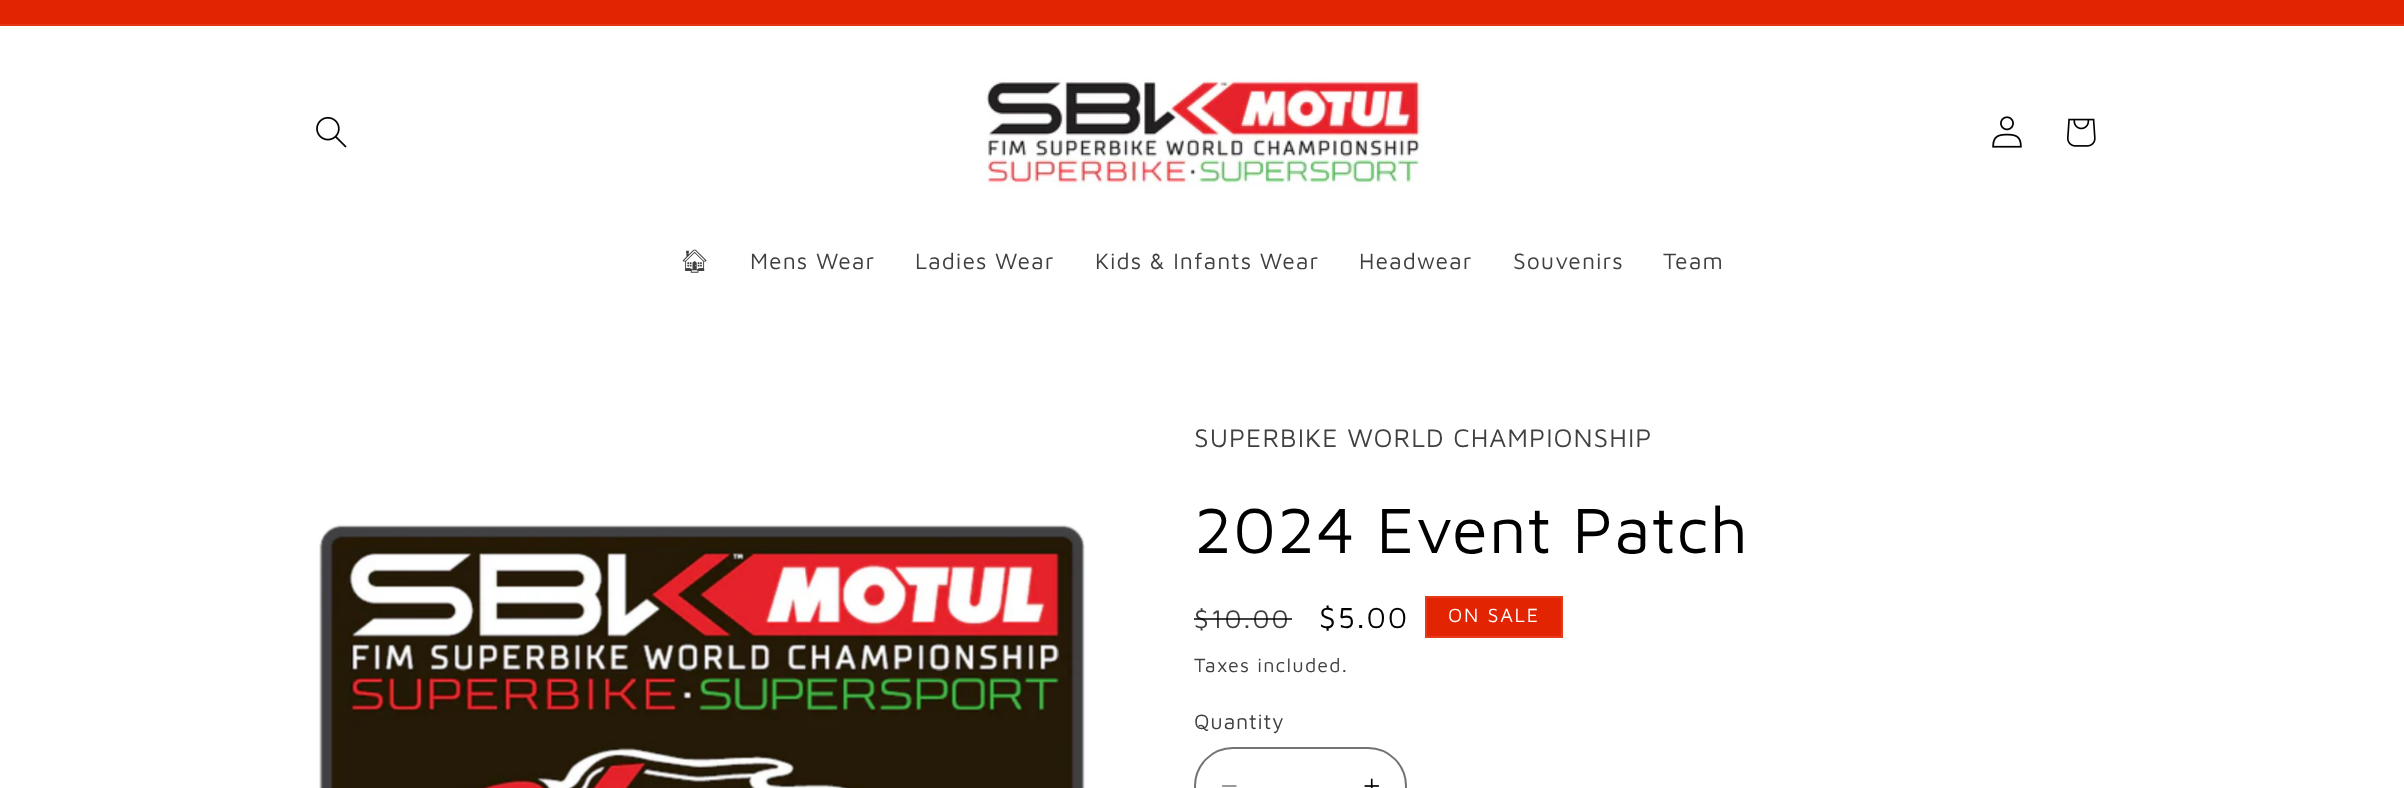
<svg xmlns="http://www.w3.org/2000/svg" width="2404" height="788">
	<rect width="100%" height="100%" fill="#FFFFFF" />
	<rect x="0" y="0" width="2404" height="24" fill="#E32402" />
	<rect x="0" y="24" width="2404" height="2" fill="#E53616" />
	<image x="316" y="116" width="31" height="32" href="assets/img1.png" />
	<image x="981" y="79" width="441" height="109" href="assets/img2.png" />
	<image x="1992" y="116" width="30" height="32" href="assets/img3.png" />
	<image x="2067" y="118" width="29" height="29" href="assets/img4.png" />
	<text x="680" y="269" font-family="Noto Emoji" font-size="23" letter-spacing="1" fill="#404040">🏠︎</text>
	<g font-family="Maven Pro" font-size="23" letter-spacing="1" fill="#404040">
		<text x="750" y="269">Mens Wear</text>
		<text x="915" y="269">Ladies Wear</text>
		<text x="1095" y="269">Kids &amp; Infants Wear</text>
		<text x="1359" y="269">Headwear</text>
		<text x="1513" y="269">Souvenirs</text>
		<text x="1663" y="269">Team</text>
	</g>
	<image x="319" y="524" width="766" height="264" href="assets/img5.png" />
	<text x="1194" y="447" font-family="Maven Pro" font-size="26.4" letter-spacing="1" fill="#404040">SUPERBIKE WORLD CHAMPIONSHIP</text>
	<text x="1194" y="553" font-family="Maven Pro" font-size="66" letter-spacing="1" fill="#000000">2024 Event Patch</text>
	<text x="1194" y="628" font-family="Maven Pro" font-size="26.4" letter-spacing="2" fill="#404040">$10.00</text>
	<rect x="1194" y="618" width="98" height="2" fill="#000000" fill-opacity="0.75" />
	<text x="1319" y="628" font-family="Maven Pro" font-size="30" letter-spacing="2" fill="#000000">$5.00</text>
	<rect x="1426" y="597" width="136" height="40" fill="#E32402" stroke="#E63A1B" stroke-width="2" />
	<text x="1448" y="622" font-family="Maven Pro" font-size="19.75" letter-spacing="1.75" fill="#FFFFFF">ON SALE</text>
	<text x="1194" y="672" font-family="Maven Pro" font-size="19.75" letter-spacing="1.2" fill="#404040">Taxes included.</text>
	<text x="1194" y="729" font-family="Maven Pro" font-size="21.5" letter-spacing="0.75" fill="#404040">Quantity</text>
	<image x="1222" y="785" width="15" height="2" href="assets/img6.png" />
	<image x="1364" y="778" width="16" height="10" href="assets/img7.png" />
	<rect x="1195" y="748" width="211" height="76" rx="38" fill="none" stroke="#737373" stroke-width="2" />
</svg>
